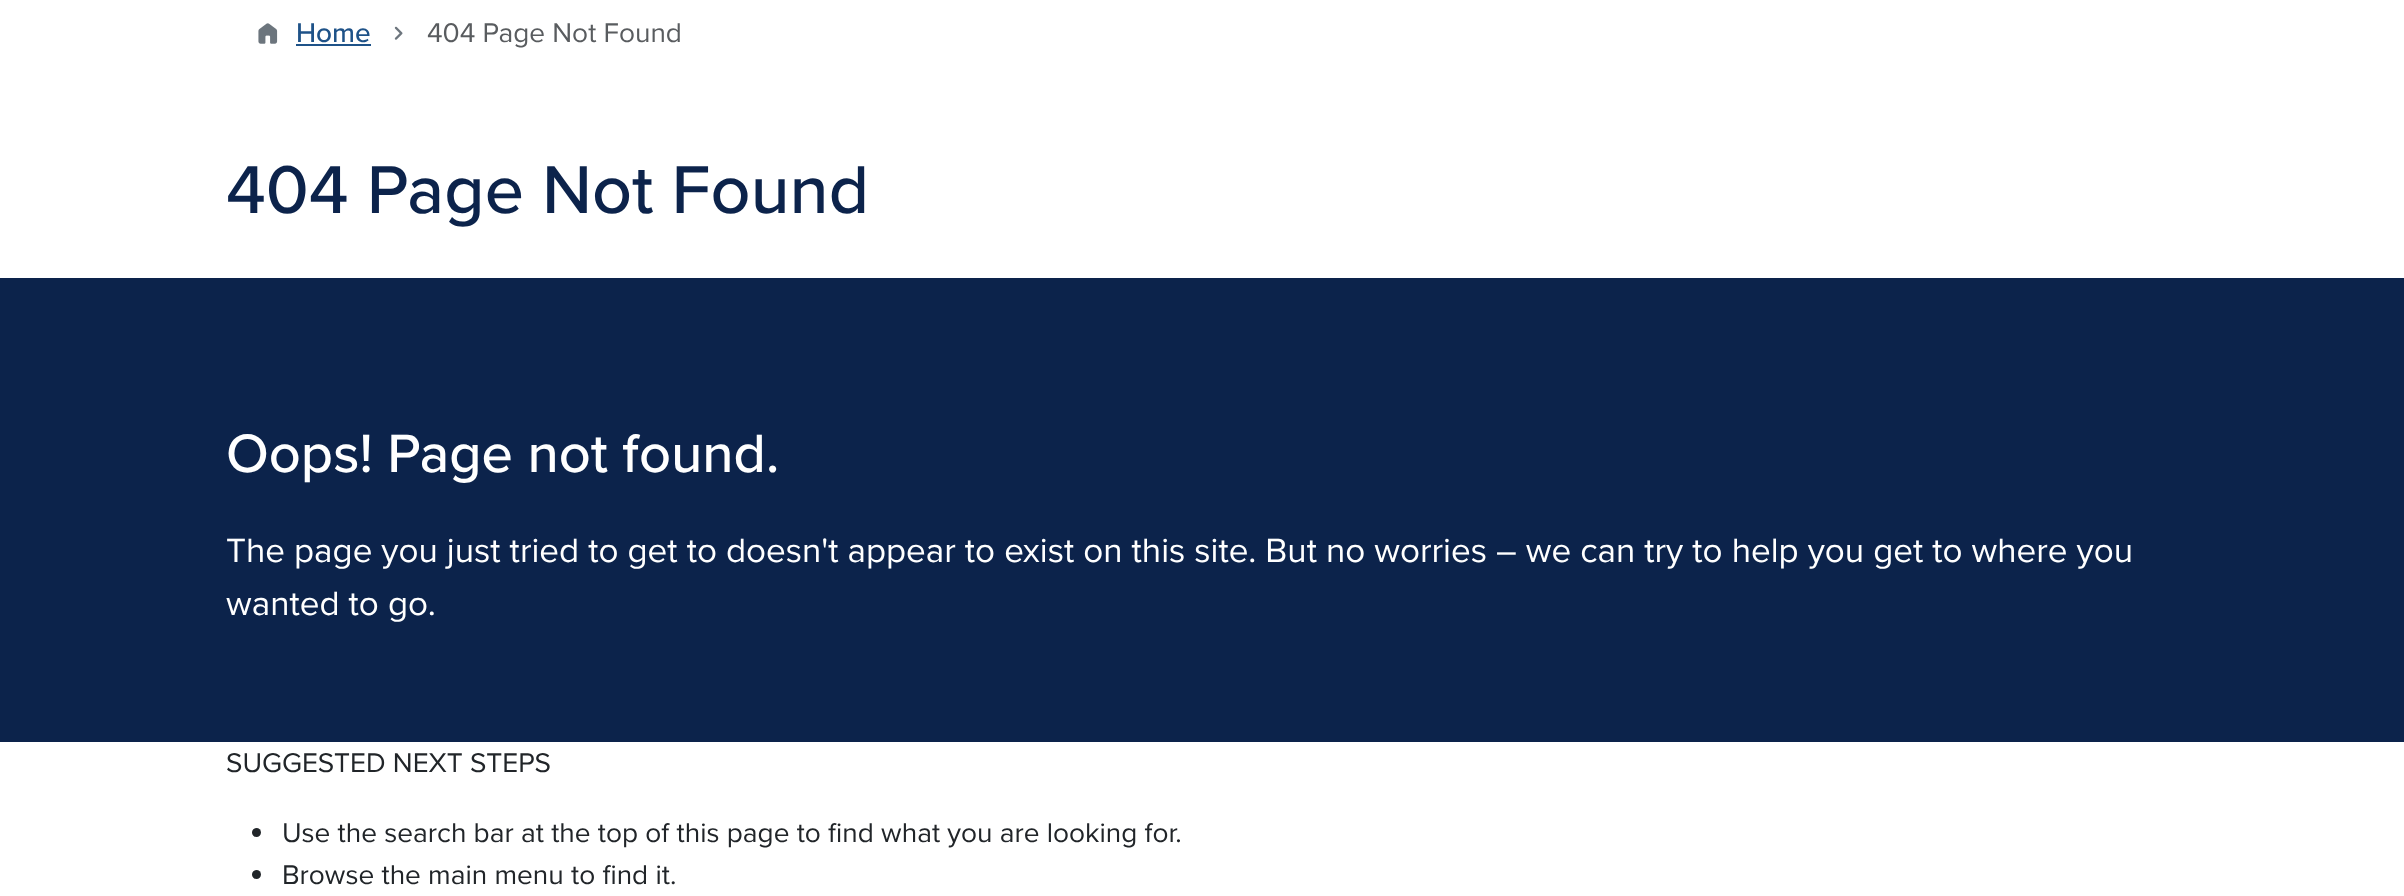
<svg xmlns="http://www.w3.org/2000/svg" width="2404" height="896">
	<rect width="100%" height="100%" fill="#FFFFFF" />
	<image x="258" y="23" width="20" height="21" href="assets/img1.png" />
	<text x="296" y="42" font-family="Proxima Nova" font-size="28" font-weight="500" fill="#1E5288">Home</text>
	<rect x="296" y="44" width="75" height="2" fill="#1E5288" />
	<image x="394" y="26" width="9" height="14" href="assets/img2.png" />
	<text x="427" y="42" font-family="Proxima Nova" font-size="28" fill="#595C5F">404 Page Not Found</text>
	<text x="226" y="213" font-family="Proxima Nova" font-size="70" font-weight="500" fill="#0C234B">404 Page Not Found</text>
	<rect x="0" y="278" width="2404" height="464" fill="#0C234B" />
	<text x="226" y="472" font-family="Proxima Nova" font-size="56" font-weight="500" fill="#FFFFFF">Oops! Page not found.</text>
	<g font-family="Proxima Nova" font-size="35" fill="#FFFFFF">
		<text x="226" y="562">The page you just tried to get to doesn't appear to exist on this site. But no worries – we can try to help you get to where you</text>
		<text x="226" y="615">wanted to go.</text>
	</g>
	<text x="226" y="772" font-family="Proxima Nova" font-size="28" fill="#212529">SUGGESTED NEXT STEPS</text>
	<circle cx="256.5" cy="832.5" r="4.5" fill="#212529" />
	<text x="282" y="842" font-family="Proxima Nova" font-size="28" fill="#212529">Use the search bar at the top of this page to find what you are looking for.</text>
	<circle cx="256.5" cy="874.5" r="4.5" fill="#212529" />
	<text x="282" y="884" font-family="Proxima Nova" font-size="28" fill="#212529">Browse the main menu to find it.</text>
</svg>
